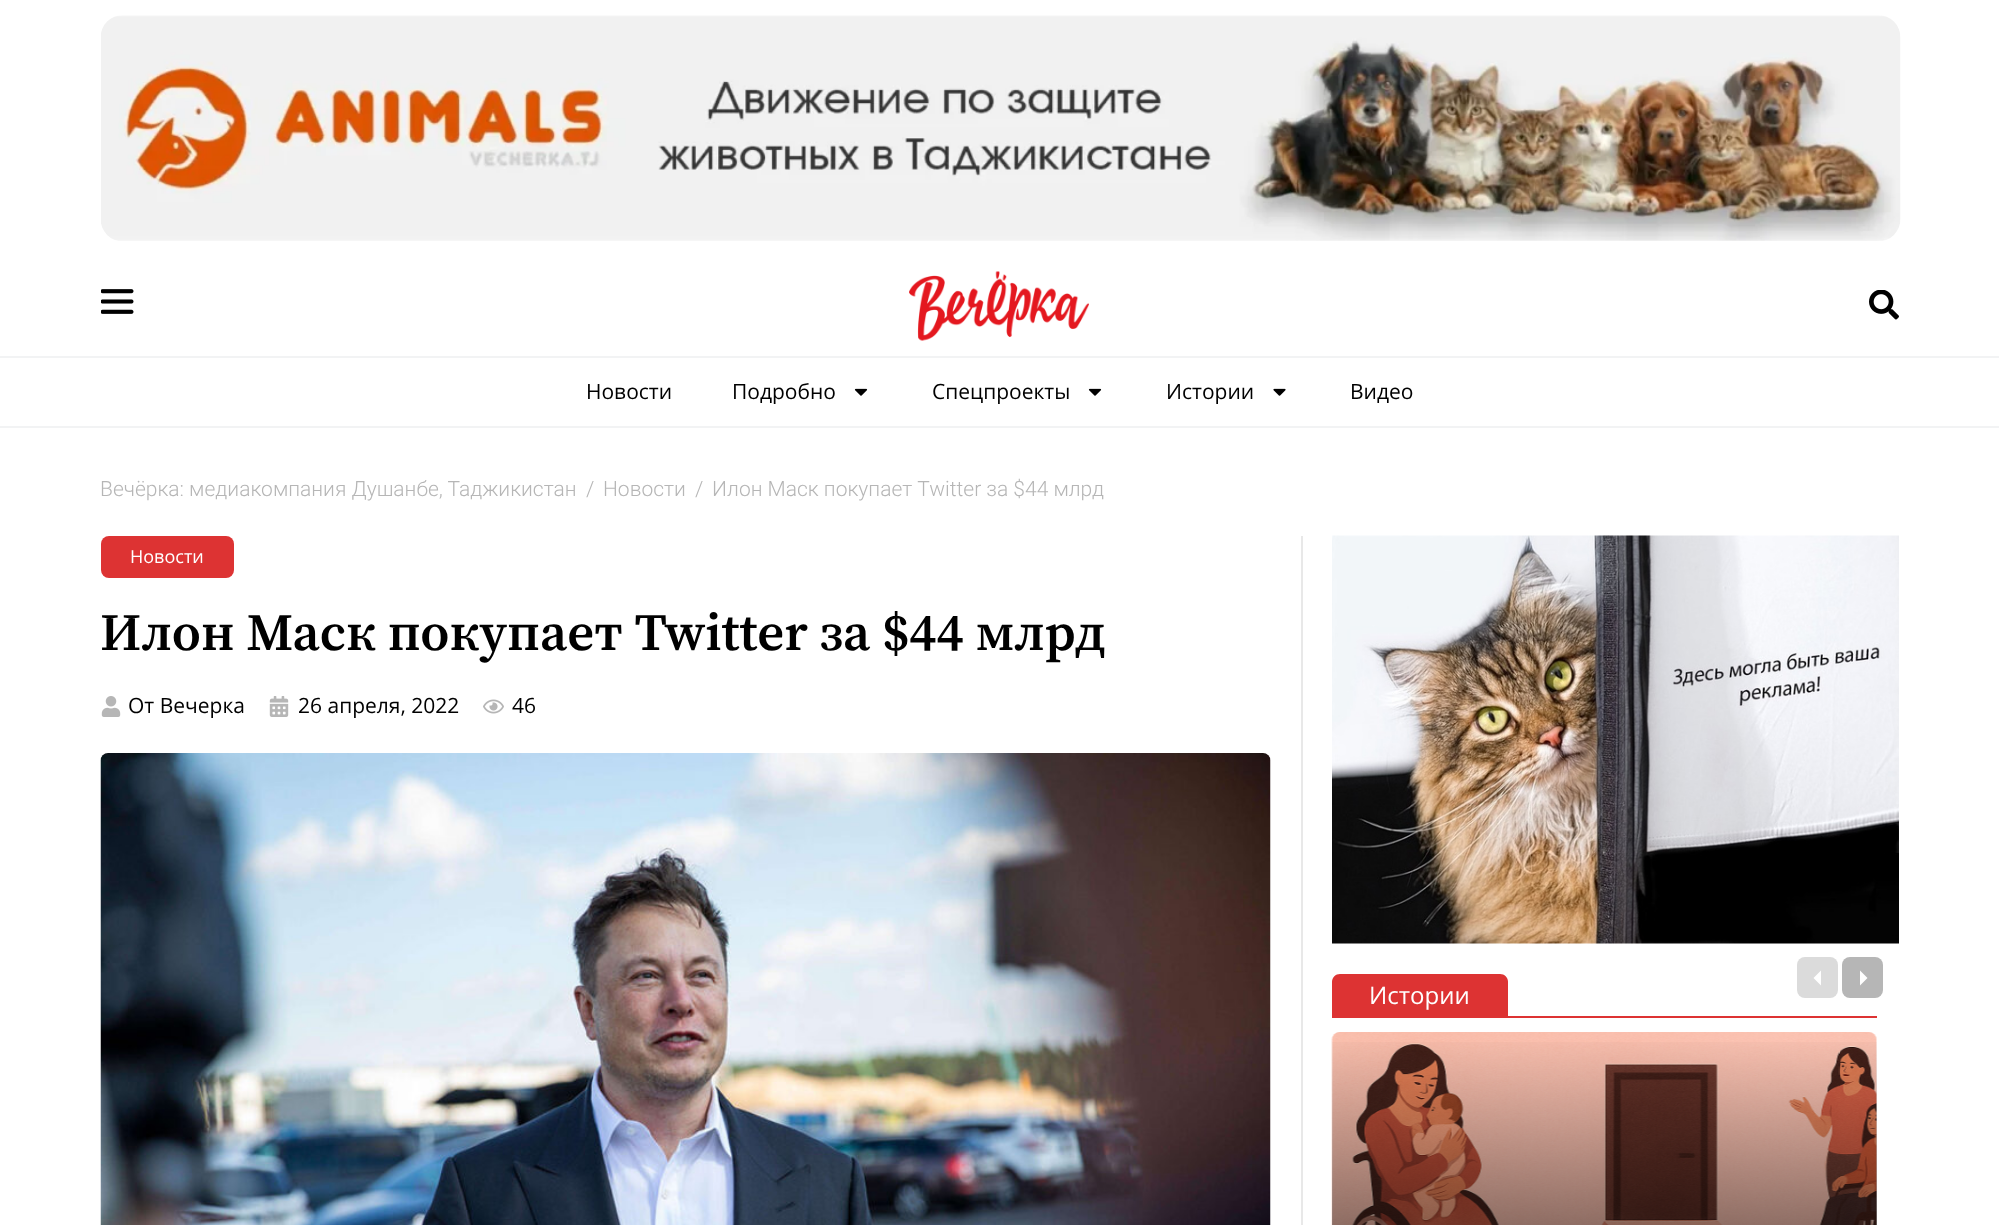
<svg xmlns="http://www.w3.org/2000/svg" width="1999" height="1225">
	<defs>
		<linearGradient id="g1" gradientUnits="userSpaceOnUse" x1="1604" y1="1032" x2="1604" y2="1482"><stop offset="0" stop-color="#000000" stop-opacity="0" /><stop offset="1" stop-color="#000000" /></linearGradient>
	</defs>
	<rect width="100%" height="100%" fill="#FFFFFF" />
	<image x="101" y="15" width="1800" height="226" href="assets/img1.png" />
	<image x="101" y="289" width="33" height="25" href="assets/img2.png" />
	<image x="909" y="271" width="180" height="70" href="assets/img3.png" />
	<image x="1869" y="290" width="30" height="30" href="assets/img4.png" />
	<rect x="0" y="356" width="1999" height="2" fill="#F2F3F4" />
	<rect x="0" y="426" width="1999" height="2" fill="#F2F3F4" />
	<g font-family="Open Sans" font-size="21" fill="#000000">
		<text x="586" y="399">Новости</text>
		<text x="732" y="399">Подробно</text>
	</g>
	<image x="854" y="388" width="14" height="8" href="assets/img5.png" />
	<text x="932" y="399" font-family="Open Sans" font-size="21" fill="#000000">Спецпроекты</text>
	<image x="1088" y="388" width="14" height="8" href="assets/img5.png" />
	<text x="1166" y="399" font-family="Open Sans" font-size="21" fill="#000000">Истории</text>
	<image x="1273" y="388" width="13" height="8" href="assets/img6.png" />
	<text x="1350" y="399" font-family="Open Sans" font-size="21" fill="#000000">Видео</text>
	<g font-family="Roboto" font-size="21" font-weight="300" fill="#B6B6B6">
		<text x="100" y="496">Вечёрка: медиакомпания Душанбе, Таджикистан</text>
		<text x="586" y="496">/</text>
		<text x="603" y="496">Новости</text>
		<text x="695" y="496">/</text>
		<text x="712" y="496">Илон Маск покупает Twitter за $44 млрд</text>
	</g>
	<rect x="101" y="536" width="133" height="42" rx="8" fill="#DD3333" />
	<text x="130" y="563" font-family="Open Sans" font-size="18" fill="#FFFFFF">Новости</text>
	<text x="100" y="650" font-family="'Source Serif 4'" font-size="52.5" font-weight="600" fill="#000000">Илон Маск покупает Twitter за $44 млрд</text>
	<image x="101" y="696" width="20" height="21" href="assets/img7.png" />
	<text x="128" y="713" font-family="Open Sans" font-size="21" fill="#000000">От Вечерка</text>
	<image x="269" y="696" width="20" height="21" href="assets/img8.png" />
	<text x="298" y="713" font-family="Open Sans" font-size="21" fill="#000000">26 апреля, 2022</text>
	<image x="483" y="699" width="21" height="15" href="assets/img9.png" />
	<text x="512" y="713" font-family="Open Sans" font-size="21" fill="#000000">46</text>
	<image x="100" y="753" width="1171" height="472" href="assets/img10.png" />
	<rect x="1301" y="536" width="2" height="689" fill="#E8E8E8" />
	<image x="1332" y="535" width="567" height="409" href="assets/img11.png" />
	<rect x="1797" y="957" width="41" height="41" rx="8" fill="#DBDBDB" />
	<path d="M1821 970.5V985.5L1813.5 978Z" fill="#FFFFFF" />
	<rect x="1842" y="957" width="41" height="41" rx="8" fill="#B6B6B6" />
	<path d="M1860 985.5V970.5L1867.5 978Z" fill="#FFFFFF" />
	<image x="1331" y="1032" width="546" height="193" href="assets/img12.png" />
	<rect x="1332" y="1042" width="545" height="183" fill="url(#g1)" />
	<rect x="1332" y="1016" width="545" height="2" fill="#DD3333" />
	<path d="M1340 974H1500C1504.5 974 1508 977.5 1508 982V1016H1332V982C1332 977.5 1335.5 974 1340 974Z" fill="#DD3333" />
	<text x="1369" y="1004" font-family="Open Sans" font-size="24" fill="#FFFFFF">Истории</text>
</svg>
